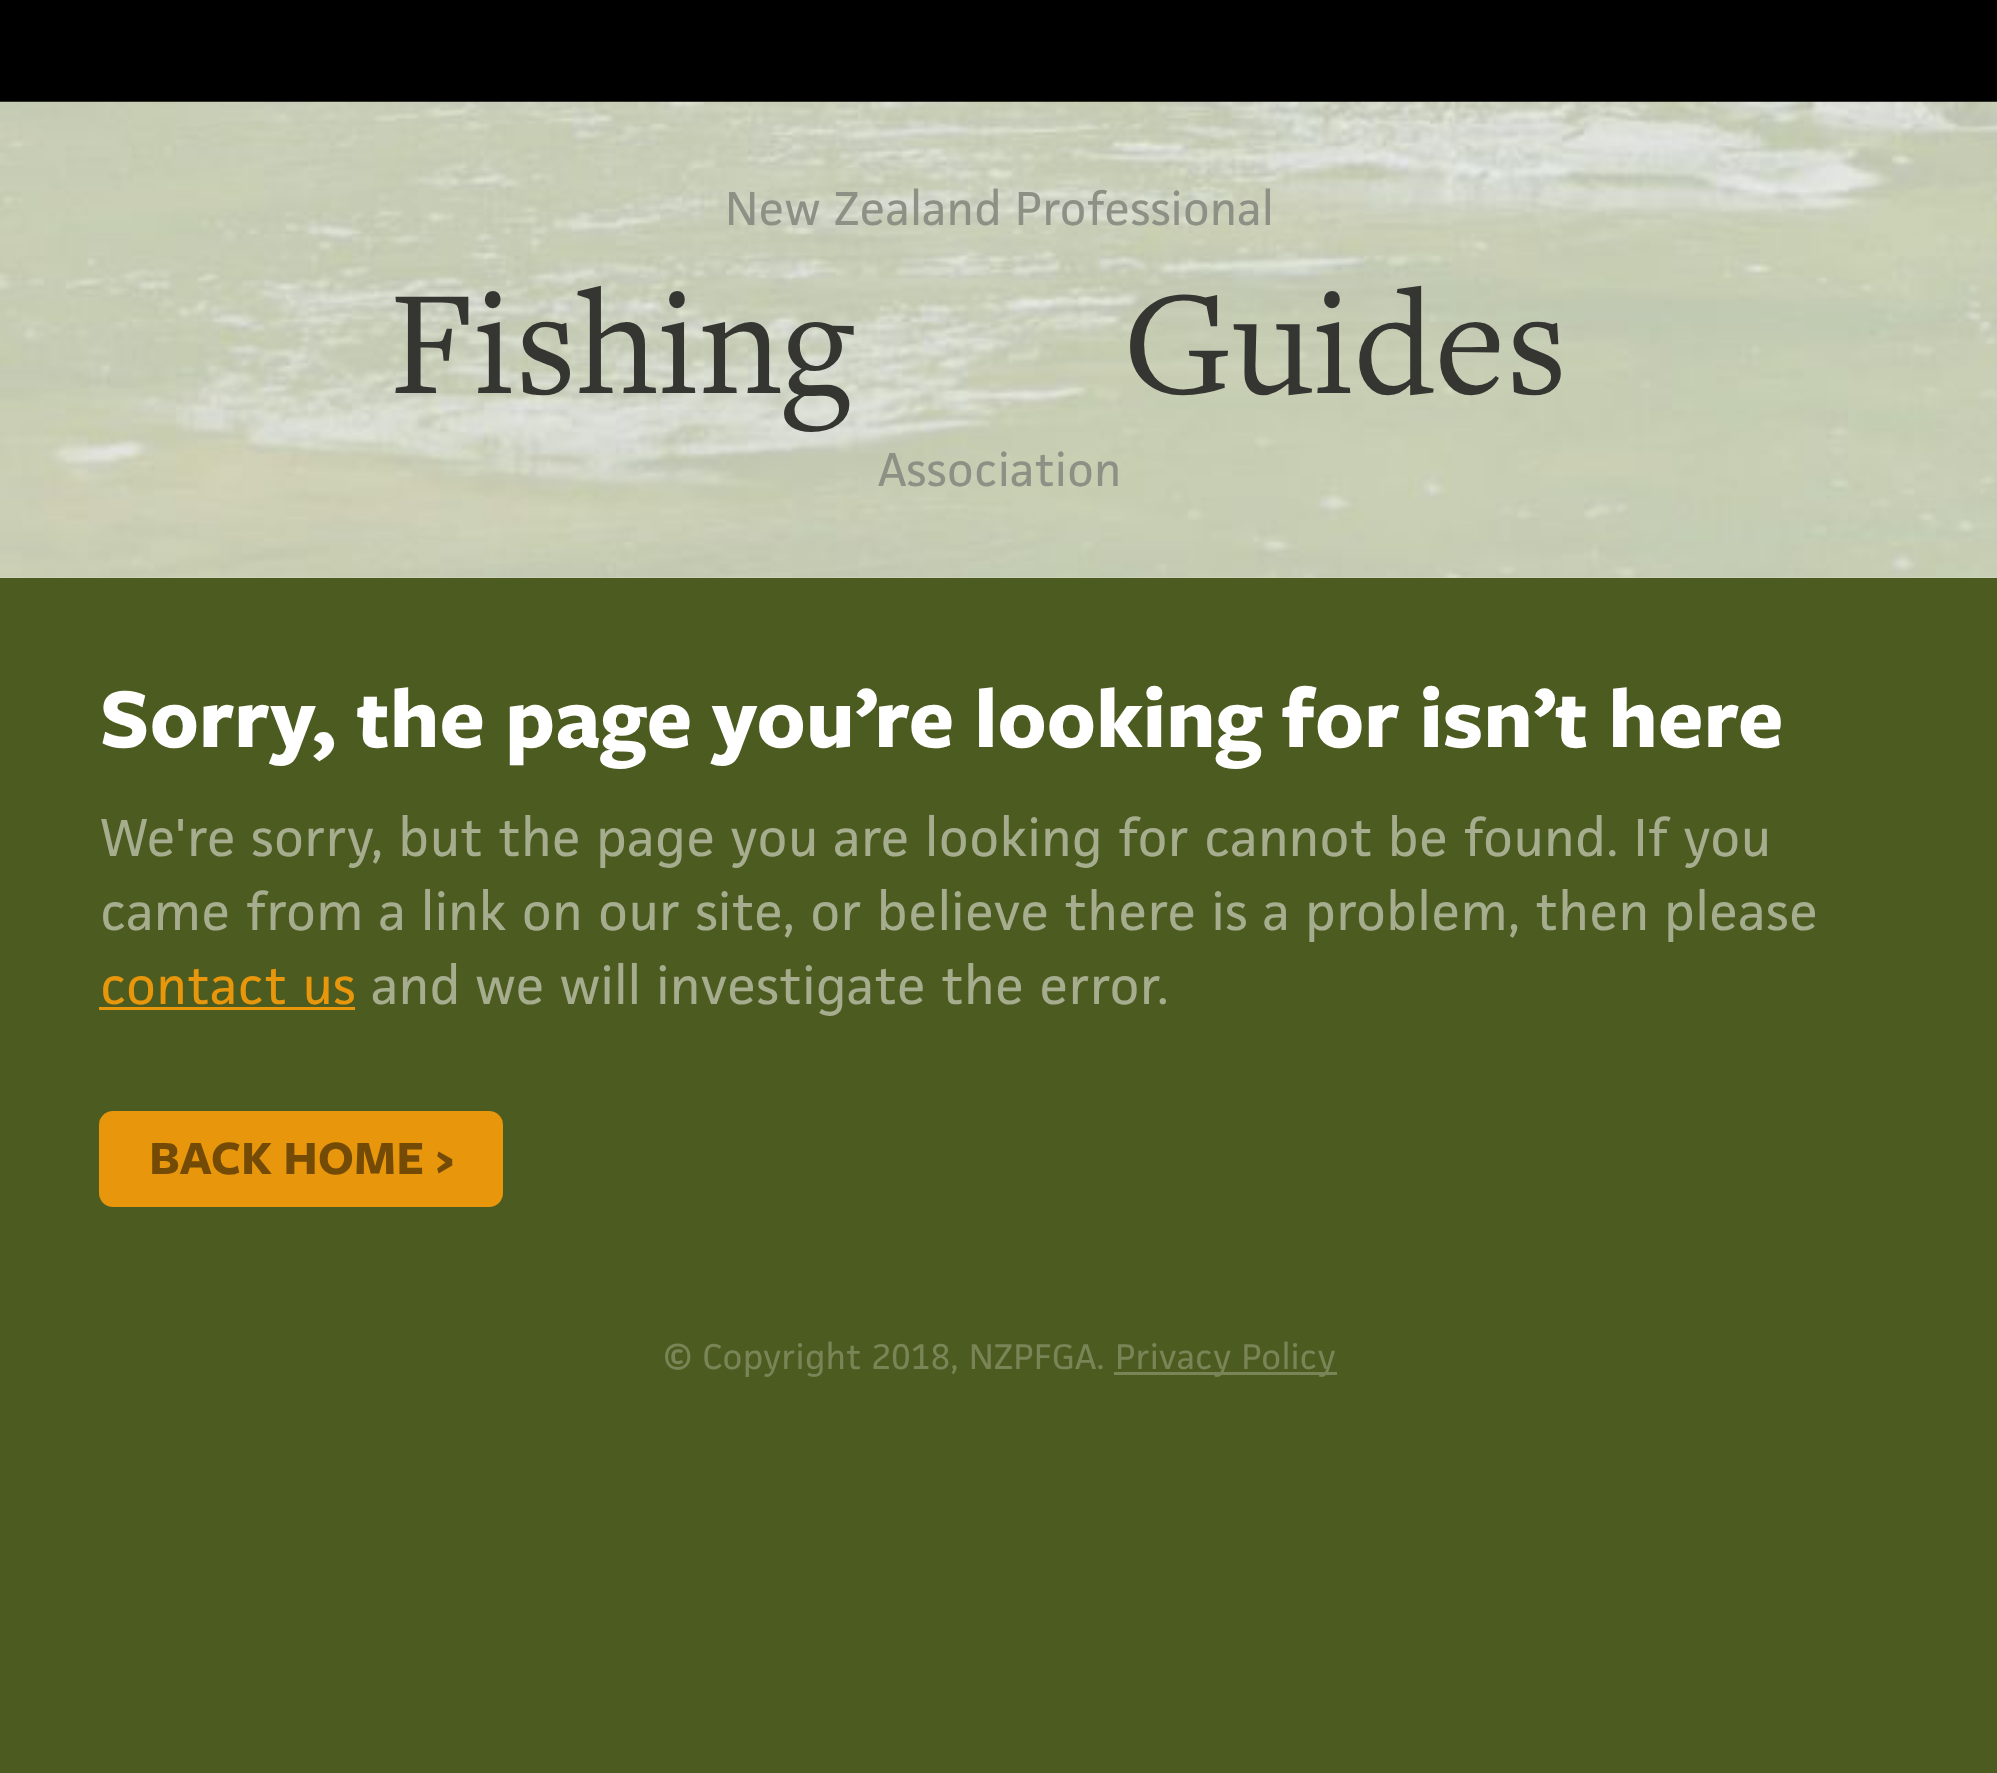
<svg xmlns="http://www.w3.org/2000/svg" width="1997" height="1773">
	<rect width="100%" height="100%" fill="#4C5B1F" />
	<rect x="0" y="0" width="1997" height="102" fill="#000000" />
	<rect x="0" y="577" width="1997" height="1" fill="#D2D6C7" />
	<image x="0" y="101" width="1997" height="477" href="assets/img1.png" />
	<text x="725" y="225" font-family="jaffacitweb" font-size="44" fill="#8D9085">New Zealand Professional</text>
	<g font-family="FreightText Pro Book" font-size="154" fill="#353632">
		<text x="389" y="393">Fishing</text>
		<text x="1123" y="393">Guides</text>
	</g>
	<text x="878" y="486" font-family="jaffacitweb" font-size="44" fill="#8D9085">Association</text>
	<text x="100" y="747" font-family="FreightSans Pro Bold" font-size="88" font-weight="700" fill="#FFFFFF">Sorry, the page you’re looking for isn’t here</text>
	<g font-family="jaffacitweb" font-size="49.5" fill="#A6AD8F">
		<text x="100" y="856">We're sorry, but the page you are looking for cannot be found. If you</text>
		<text x="100" y="930">came from a link on our site, or believe there is a problem, then please</text>
	</g>
	<text x="100" y="1004" font-family="jaffacitweb" font-size="49.5" fill="#E8960C">contact us</text>
	<rect x="99" y="1007" width="256" height="3" fill="#E8960C" />
	<text x="371" y="1004" font-family="jaffacitweb" font-size="49.5" fill="#A6AD8F">and we will investigate the error.</text>
	<rect x="99" y="1111" width="404" height="96" rx="14" fill="#E8960C" />
	<text x="149" y="1174" font-family="FreightSans Pro Bold" font-size="49.5" font-weight="700" fill="#744B06">BACK HOME ›</text>
	<text x="663" y="1369" font-family="jaffacitweb" font-size="33" fill="#798457">© Copyright 2018, NZPFGA.</text>
	<rect x="1114" y="1372" width="223" height="3" fill="#798457" />
	<text x="1115" y="1369" font-family="jaffacitweb" font-size="33" fill="#798457">Privacy Policy</text>
</svg>
